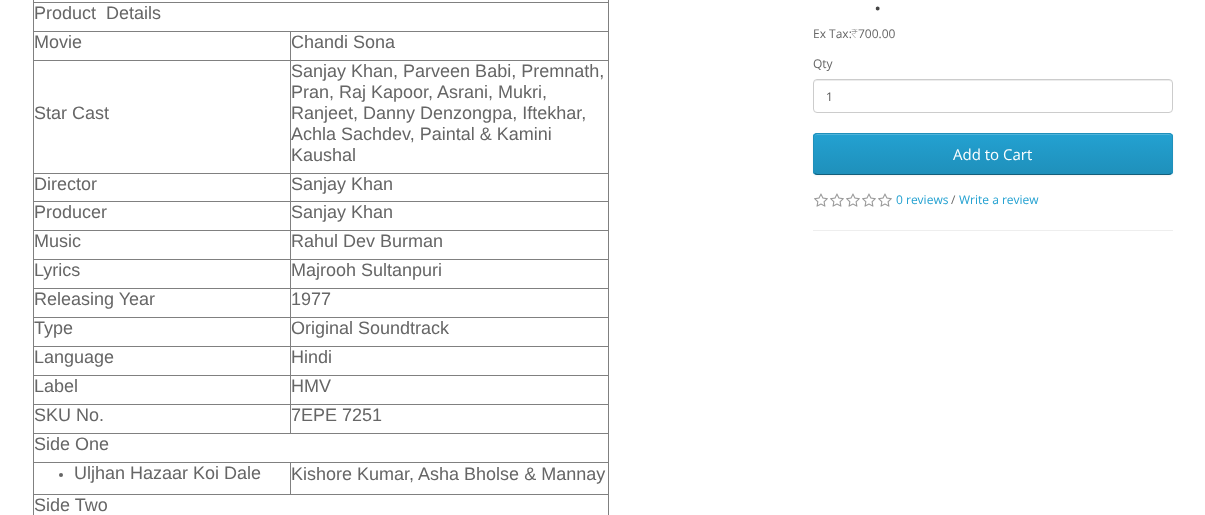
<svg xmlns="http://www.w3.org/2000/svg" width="1205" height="515">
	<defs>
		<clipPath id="clip1"><rect x="813" y="133" width="360" height="42" rx="4" /></clipPath>
		<linearGradient id="g1" gradientUnits="userSpaceOnUse" x1="993" y1="134" x2="993" y2="174"><stop offset="0" stop-color="#23A1D1" /><stop offset="1" stop-color="#1F90BB" /></linearGradient>
	</defs>
	<rect width="100%" height="100%" fill="#FFFFFF" />
	<rect x="608" y="0" width="1" height="515" fill="#808080" />
	<rect x="33" y="0" width="1" height="515" fill="#808080" />
	<rect x="33" y="2" width="576" height="1" fill="#808080" />
	<text x="34" y="19" font-family="Liberation Sans" font-size="18" fill="#666666" xml:space="preserve">Product  Details</text>
	<rect x="290" y="31" width="319" height="1" fill="#808080" />
	<rect x="290" y="60" width="319" height="1" fill="#808080" />
	<rect x="290" y="173" width="319" height="1" fill="#808080" />
	<rect x="290" y="201" width="319" height="1" fill="#808080" />
	<rect x="290" y="230" width="319" height="1" fill="#808080" />
	<rect x="290" y="259" width="319" height="1" fill="#808080" />
	<rect x="290" y="288" width="319" height="1" fill="#808080" />
	<rect x="290" y="317" width="319" height="1" fill="#808080" />
	<rect x="290" y="346" width="319" height="1" fill="#808080" />
	<rect x="290" y="375" width="319" height="1" fill="#808080" />
	<rect x="290" y="404" width="319" height="1" fill="#808080" />
	<rect x="33" y="433" width="576" height="1" fill="#808080" />
	<rect x="290" y="404" width="1" height="30" fill="#808080" />
	<rect x="33" y="404" width="258" height="1" fill="#808080" />
	<rect x="290" y="375" width="1" height="30" fill="#808080" />
	<rect x="33" y="375" width="258" height="1" fill="#808080" />
	<rect x="290" y="346" width="1" height="30" fill="#808080" />
	<rect x="33" y="346" width="258" height="1" fill="#808080" />
	<rect x="290" y="317" width="1" height="30" fill="#808080" />
	<rect x="33" y="317" width="258" height="1" fill="#808080" />
	<rect x="290" y="288" width="1" height="30" fill="#808080" />
	<rect x="33" y="288" width="258" height="1" fill="#808080" />
	<rect x="290" y="259" width="1" height="30" fill="#808080" />
	<rect x="33" y="259" width="258" height="1" fill="#808080" />
	<rect x="290" y="230" width="1" height="30" fill="#808080" />
	<rect x="33" y="230" width="258" height="1" fill="#808080" />
	<rect x="290" y="201" width="1" height="30" fill="#808080" />
	<rect x="33" y="201" width="258" height="1" fill="#808080" />
	<rect x="290" y="173" width="1" height="29" fill="#808080" />
	<rect x="33" y="173" width="258" height="1" fill="#808080" />
	<rect x="290" y="60" width="1" height="114" fill="#808080" />
	<rect x="33" y="60" width="258" height="1" fill="#808080" />
	<rect x="290" y="31" width="1" height="30" fill="#808080" />
	<rect x="33" y="31" width="258" height="1" fill="#808080" />
	<g font-family="Liberation Sans" font-size="18" fill="#666666">
		<text x="34" y="48">Movie</text>
		<text x="291" y="48">Chandi Sona</text>
		<text x="34" y="119">Star Cast</text>
		<text x="291" y="77">Sanjay Khan, Parveen Babi, Premnath,</text>
		<text x="291" y="98">Pran, Raj Kapoor, Asrani, Mukri,</text>
		<text x="291" y="119">Ranjeet, Danny Denzongpa, Iftekhar,</text>
		<text x="291" y="140">Achla Sachdev, Paintal &amp; Kamini</text>
		<text x="291" y="161">Kaushal</text>
		<text x="34" y="190">Director</text>
		<text x="291" y="190">Sanjay Khan</text>
		<text x="34" y="218">Producer</text>
		<text x="291" y="218">Sanjay Khan</text>
		<text x="34" y="247">Music</text>
		<text x="291" y="247">Rahul Dev Burman</text>
		<text x="34" y="276">Lyrics</text>
		<text x="291" y="276">Majrooh Sultanpuri</text>
		<text x="34" y="305">Releasing Year</text>
		<text x="291" y="305">1977</text>
		<text x="34" y="334">Type</text>
		<text x="291" y="334">Original Soundtrack</text>
		<text x="34" y="363">Language</text>
		<text x="291" y="363">Hindi</text>
		<text x="34" y="392">Label</text>
		<text x="291" y="392">HMV</text>
		<text x="34" y="421">SKU No.</text>
		<text x="291" y="421">7EPE 7251</text>
		<text x="34" y="450">Side One</text>
	</g>
	<rect x="290" y="462" width="319" height="1" fill="#808080" />
	<rect x="33" y="494" width="576" height="1" fill="#808080" />
	<rect x="290" y="462" width="1" height="33" fill="#808080" />
	<rect x="33" y="462" width="258" height="1" fill="#808080" />
	<circle cx="61" cy="475" r="2" fill="#666666" />
	<g font-family="Liberation Sans" font-size="18" fill="#666666">
		<text x="74" y="479">Uljhan Hazaar Koi Dale</text>
		<text x="291" y="480">Kishore Kumar, Asha Bholse &amp; Mannay</text>
		<text x="34" y="511">Side Two</text>
	</g>
	<text x="874" y="10" font-family="Noto Sans" font-size="27" font-weight="500" fill="#444444">.</text>
	<text x="813" y="38" font-family="Open Sans" font-size="12" fill="#666666">Ex Tax:</text>
	<text x="851" y="38" font-family="Noto Sans" font-size="12" font-weight="100" fill="#666666">₹</text>
	<g font-family="Open Sans" font-size="12" fill="#666666">
		<text x="858" y="38">700.00</text>
		<text x="813" y="68">Qty</text>
	</g>
	<path d="M817 81H1169C1171 81 1172 82 1172 84C1172 82 1171 80 1169 80H817L815 81L814 84C814 82 815 81 817 81Z" fill="#ECECEC" />
	<rect x="813.5" y="79.5" width="359" height="33" rx="3.5" fill="none" stroke="#CCCCCC" />
	<text x="826" y="101" font-family="Open Sans" font-size="12" fill="#555555">1</text>
	<rect x="813" y="134" width="360" height="42" rx="4" fill="#000000" fill-opacity="0.05" filter="blur(1px)" />
	<rect x="813" y="133" width="360" height="42" rx="4" fill="#229AC8" />
	<g clip-path="url(#clip1)">
		<rect x="813" y="134" width="360" height="40" fill="url(#g1)" />
	</g>
	<path d="M817 135H1169C1171 135 1172 136 1172 138C1172 136 1171 134 1169 134H817L815 135L814 138C814 136 815 135 817 135Z" fill="#4FB4DA" />
	<path d="M1171.5 173.5L1169 174.5H817L814.5 173.5" fill="none" stroke="#145E7A" />
	<path d="M814.5 173.5C814 173 813.5 172 813.5 171V137C813.5 136 814 135 814.5 134.5C815 134 816 133.5 817 133.5H1169C1170 133.5 1171 134 1171.5 134.5C1172 135 1172.5 136 1172.5 137V171C1172.5 172 1172 173 1171.5 173.5" fill="none" stroke="#1F90BB" />
	<text x="953" y="160" font-family="Open Sans" font-size="15" fill="#FFFFFF">Add to Cart</text>
	<image x="814" y="193" width="14" height="14" href="assets/img1.png" />
	<image x="830" y="193" width="14" height="14" href="assets/img1.png" />
	<image x="846" y="193" width="14" height="14" href="assets/img1.png" />
	<image x="862" y="193" width="14" height="14" href="assets/img1.png" />
	<image x="878" y="193" width="14" height="14" href="assets/img1.png" />
	<text x="896" y="204" font-family="Open Sans" font-size="12" fill="#23A1D1">0 reviews</text>
	<text x="951" y="204" font-family="Open Sans" font-size="12" fill="#666666">/</text>
	<text x="959" y="204" font-family="Open Sans" font-size="12" fill="#23A1D1">Write a review</text>
	<rect x="813" y="230" width="360" height="1" fill="#EEEEEE" />
</svg>
